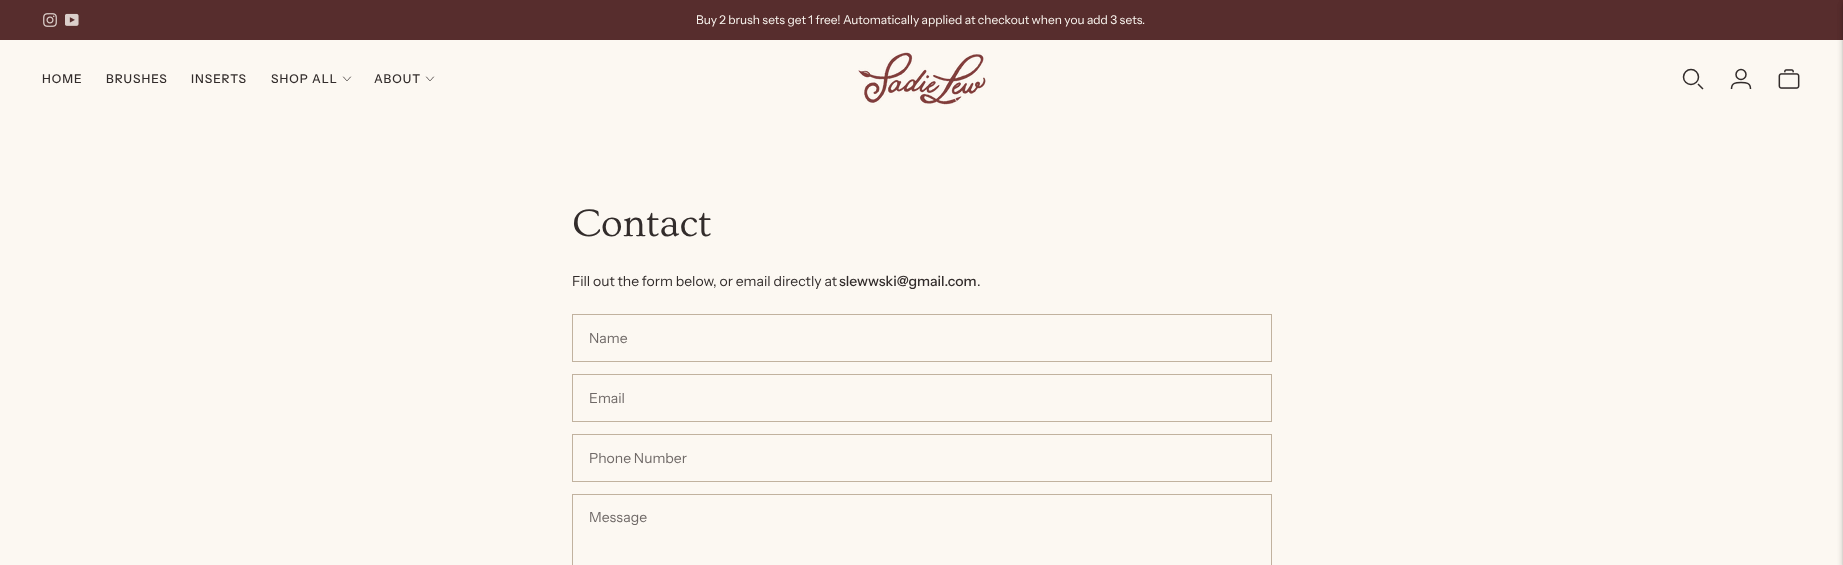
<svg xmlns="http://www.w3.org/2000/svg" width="1843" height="565">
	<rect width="100%" height="100%" fill="#FCF8F2" />
	<rect x="0" y="0" width="1843" height="40" fill="#572D2D" />
	<rect x="1843" y="4" width="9" height="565" fill="#000000" fill-opacity="0.1" filter="blur(3px)" />
	<rect x="1843" y="2" width="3" height="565" fill="#000000" fill-opacity="0.15" filter="blur(1px)" />
	<image x="43" y="13" width="14" height="14" href="assets/img1.png" />
	<image x="65" y="13" width="14" height="13" href="assets/img2.png" />
	<text x="696" y="24" font-family="Instrument Sans" font-size="12" fill="#FCF8F2">Buy 2 brush sets get 1 free! Automatically applied at checkout when you add 3 sets.</text>
	<g font-family="Instrument Sans" font-size="12" font-weight="500" letter-spacing="1" fill="#322C2B">
		<text x="42" y="83">HOME</text>
		<text x="106" y="83">BRUSHES</text>
		<text x="191" y="83">INSERTS</text>
		<text x="271" y="83">SHOP ALL</text>
	</g>
	<path d="M343.5 77C348 82 346 82 350.5 77" fill="none" stroke="#322C2B" stroke-width="0.8" stroke-linecap="round" stroke-linejoin="round" />
	<text x="374" y="83" font-family="Instrument Sans" font-size="12" font-weight="500" letter-spacing="1" fill="#322C2B">ABOUT</text>
	<path d="M426.5 77C431 82 429 82 433.5 77" fill="none" stroke="#322C2B" stroke-width="0.8" stroke-linecap="round" stroke-linejoin="round" />
	<image x="858" y="52" width="128" height="53" href="assets/img3.png" />
	<circle cx="1691" cy="77" r="7.5" fill="none" stroke="#322C2B" stroke-width="1.5" />
	<path d="M1698 84L1703 89" fill="none" stroke="#322C2B" stroke-width="1.5" />
	<circle cx="1741" cy="74.5" r="5" fill="none" stroke="#322C2B" stroke-width="1.5" />
	<path d="M1731.5 89C1731.5 82.5 1736 82.5 1741 82.5C1746 82.5 1750.5 82.5 1750.5 89" fill="none" stroke="#322C2B" stroke-width="1.5" />
	<image x="1778" y="69" width="22" height="20" href="assets/img4.png" />
	<rect x="1843" y="4" width="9" height="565" fill="#000000" fill-opacity="0.1" filter="blur(3px)" />
	<text x="572" y="236" font-family="Ovo" font-size="40" fill="#322C2B">Contact</text>
	<text x="572" y="286" font-family="Instrument Sans" font-size="14" fill="#322C2B">Fill out the form below, or email directly at</text>
	<text x="839" y="286" font-family="Instrument Sans" font-size="14" font-weight="500" fill="#322C2B">slewwski@gmail.com</text>
	<text x="977" y="286" font-family="Instrument Sans" font-size="14" fill="#322C2B">.</text>
	<rect x="572.5" y="314.5" width="699" height="47" fill="none" stroke="#C1B29F" />
	<text x="589" y="343" font-family="Instrument Sans" font-size="14" fill="#6F6967">Name</text>
	<rect x="572.5" y="374.5" width="699" height="47" fill="none" stroke="#C1B29F" />
	<text x="589" y="403" font-family="Instrument Sans" font-size="14" fill="#6F6967">Email</text>
	<rect x="572.5" y="434.5" width="699" height="47" fill="none" stroke="#C1B29F" />
	<text x="589" y="463" font-family="Instrument Sans" font-size="14" fill="#6F6967">Phone Number</text>
	<rect x="572.5" y="494.5" width="699" height="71" fill="none" stroke="#C1B29F" />
	<text x="589" y="522" font-family="Instrument Sans" font-size="14" fill="#6F6967">Message</text>
</svg>
